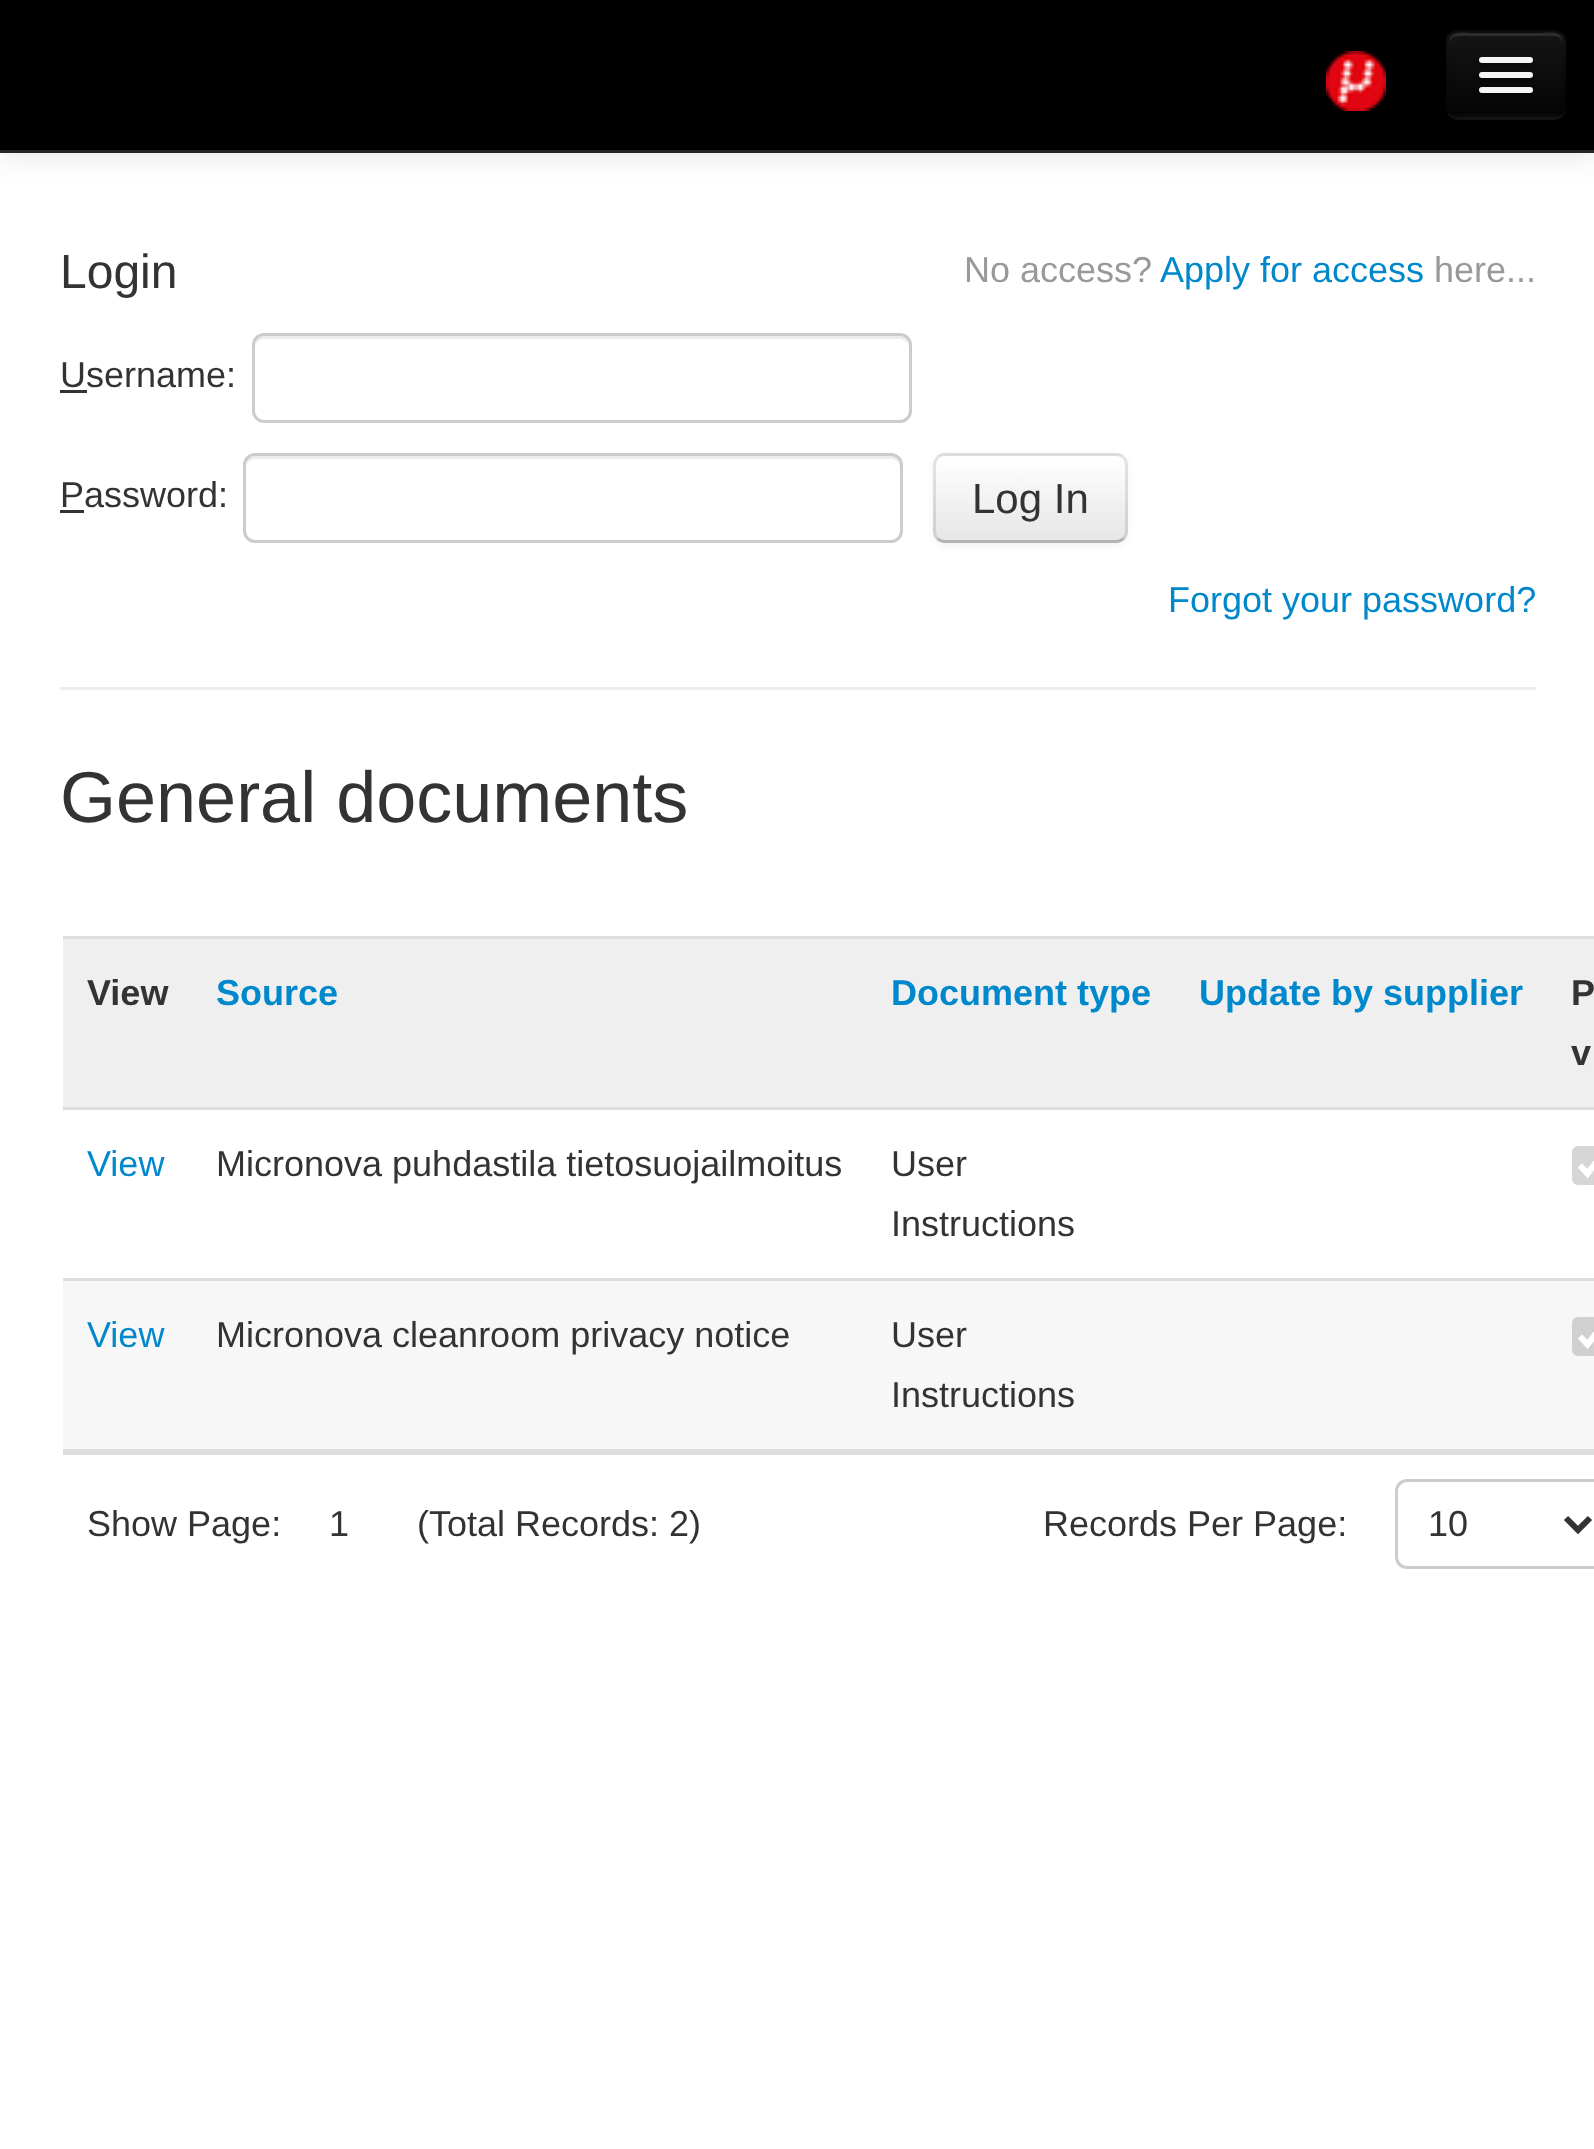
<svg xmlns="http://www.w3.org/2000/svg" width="1594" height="2149">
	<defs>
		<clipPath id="clip1"><rect x="1446" y="30" width="120" height="87" rx="12" /></clipPath>
		<linearGradient id="g1" gradientUnits="userSpaceOnUse" x1="1506" y1="33" x2="1506" y2="114"><stop offset="0" stop-color="#151515" /><stop offset="1" stop-color="#040404" /></linearGradient>
		<clipPath id="clip2"><rect x="933" y="453" width="195" height="90" rx="12" /></clipPath>
		<linearGradient id="g2" gradientUnits="userSpaceOnUse" x1="1031" y1="456" x2="1031" y2="540"><stop offset="0" stop-color="#FFFFFF" /><stop offset="1" stop-color="#E6E6E6" /></linearGradient>
	</defs>
	<rect width="100%" height="100%" fill="#FFFFFF" />
	<rect x="0" y="3" width="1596" height="153" fill="#000000" fill-opacity="0.1" filter="blur(15px)" />
	<rect x="0" y="0" width="1594" height="150" fill="#000000" />
	<rect x="0" y="150" width="1594" height="3" fill="#252525" />
	<image x="1326" y="51" width="60" height="60" href="assets/img1.png" />
	<path d="M1446 105C1446 123 1460 120 1474 120H1538C1552 120 1566 123 1566 105C1566 112 1561 117 1554 117H1458C1451 117 1446 112 1446 105Z" fill="#131313" />
	<rect x="1446" y="30" width="120" height="87" rx="12" fill="#0E0E0E" />
	<g clip-path="url(#clip1)">
		<rect x="1446" y="33" width="120" height="81" fill="url(#g1)" />
	</g>
	<path d="M1458 36H1554C1559 36 1563 40 1563 45C1563 29 1551 33 1538 33H1474C1461 33 1449 29 1449 45C1449 40 1453 36 1458 36Z" fill="#2C2C2C" />
	<path d="M1561.5 112.5C1559.5 114.5 1557 115.5 1554 115.5H1458C1455 115.5 1452.5 114.5 1450.5 112.5" fill="none" stroke="#000000" stroke-opacity="0.25" stroke-width="3" />
	<path d="M1450.5 112.5C1448.5 110.5 1447.5 108 1447.5 105V42C1447.5 39 1448.5 36.5 1450.5 34.5C1452.5 32.5 1455 31.5 1458 31.5H1554C1557 31.5 1559.5 32.5 1561.5 34.5C1563.5 36.5 1564.5 39 1564.5 42V105C1564.5 108 1563.5 110.5 1561.5 112.5" fill="none" stroke="#000000" stroke-opacity="0.1" stroke-width="3" />
	<path d="M1479 62C1476 68 1490 66 1490 66H1522C1522 66 1536 68 1533 62C1532 62 1531 63 1530 63H1482C1481 63 1480 62 1479 62Z" fill="#0B0B0B" />
	<rect x="1479" y="57" width="54" height="6" rx="3" fill="#F5F5F5" />
	<path d="M1479 76C1476 83 1490 81 1490 81H1522C1522 81 1536 83 1533 76C1532 77 1531 78 1530 78H1482C1481 78 1480 77 1479 76Z" fill="#080808" />
	<rect x="1479" y="72" width="54" height="6" rx="3" fill="#F5F5F5" />
	<path d="M1479 92C1476 98 1490 96 1490 96H1522C1522 96 1536 98 1533 92C1532 92 1531 93 1530 93H1482C1481 93 1480 92 1479 92Z" fill="#060606" />
	<rect x="1479" y="87" width="54" height="6" rx="3" fill="#F5F5F5" />
	<text x="60" y="288" font-family="Liberation Sans" font-size="48" fill="#333333">Login</text>
	<text x="964" y="282" font-family="Liberation Sans" font-size="36" fill="#999999">No access?</text>
	<text x="1160" y="282" font-family="Liberation Sans" font-size="36" fill="#0088CC">Apply for access</text>
	<text x="1434" y="282" font-family="Liberation Sans" font-size="36" fill="#999999">here...</text>
	<text x="60" y="387" font-family="Liberation Sans" font-size="36" fill="#333333">Username:</text>
	<rect x="60" y="390" width="27" height="3" fill="#333333" />
	<path d="M264 339H900C905 339 909 343 909 348V345C909 340 905 336 900 336H264C259 336 255 340 255 345V348C255 343 259 339 264 339Z" fill="#ECECEC" />
	<rect x="253.5" y="334.5" width="657" height="87" rx="10.5" fill="none" stroke="#CCCCCC" stroke-width="3" />
	<text x="60" y="507" font-family="Liberation Sans" font-size="36" fill="#333333">Password:</text>
	<rect x="60" y="510" width="24" height="3" fill="#333333" />
	<path d="M255 459H891C896 459 900 463 900 468V465C900 460 896 456 891 456H255C250 456 246 460 246 465V468C246 463 250 459 255 459Z" fill="#ECECEC" />
	<rect x="244.5" y="454.5" width="657" height="87" rx="10.5" fill="none" stroke="#CCCCCC" stroke-width="3" />
	<rect x="933" y="456" width="195" height="90" rx="12" fill="#000000" fill-opacity="0.05" filter="blur(3px)" />
	<rect x="933" y="453" width="195" height="90" rx="12" fill="#F5F5F5" />
	<g clip-path="url(#clip2)">
		<rect x="933" y="456" width="195" height="84" fill="url(#g2)" />
	</g>
	<path d="M1123.5 538.5C1121.5 540.5 1119 541.5 1116 541.5H945C942 541.5 939.5 540.5 937.5 538.5" fill="none" stroke="#B3B3B3" stroke-width="3" />
	<path d="M937.5 538.5C935.5 536.5 934.5 534 934.5 531V465C934.5 462 935.5 459.5 937.5 457.5C939.5 455.5 942 454.5 945 454.5H1116C1119 454.5 1121.5 455.5 1123.5 457.5C1125.5 459.5 1126.5 462 1126.5 465V531C1126.5 534 1125.5 536.5 1123.5 538.5" fill="none" stroke="#000000" stroke-opacity="0.1" stroke-width="3" />
	<text x="972" y="513" font-family="Liberation Sans" font-size="42" fill="#333333">Log In</text>
	<text x="1168" y="612" font-family="Liberation Sans" font-size="36" fill="#0088CC">Forgot your password?</text>
	<rect x="60" y="687" width="1476" height="3" fill="#EEEEEE" />
	<text x="60" y="822" font-family="Liberation Sans" font-size="72" fill="#333333">General documents</text>
	<rect x="63" y="939" width="1531" height="168" fill="#EFEFEF" />
	<text x="87" y="1005" font-family="Liberation Sans" font-size="36" font-weight="700" fill="#333333">View</text>
	<g font-family="Liberation Sans" font-size="36" font-weight="700" fill="#0088CC">
		<text x="216" y="1005">Source</text>
		<text x="891" y="1005">Document type</text>
		<text x="1199" y="1005">Update by supplier</text>
	</g>
	<rect x="63" y="936" width="1531" height="3" fill="#DDDDDD" />
	<g font-family="Liberation Sans" font-size="36" font-weight="700" fill="#333333">
		<text x="1571" y="1005">P</text>
		<text x="1571" y="1065">v</text>
	</g>
	<rect x="63" y="1107" width="1531" height="3" fill="#DDDDDD" />
	<rect x="1572" y="1146" width="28" height="39" rx="6" fill="#D6D6D6" />
	<path d="M1580 1165.5L1587.5 1173.5L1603 1154" fill="none" stroke="#FFFFFF" stroke-width="6.2" />
	<text x="87" y="1176" font-family="Liberation Sans" font-size="36" fill="#0088CC">View</text>
	<g font-family="Liberation Sans" font-size="36" fill="#333333">
		<text x="216" y="1176">Micronova puhdastila tietosuojailmoitus</text>
		<text x="891" y="1176">User</text>
		<text x="891" y="1236">Instructions</text>
	</g>
	<rect x="63" y="1278" width="1531" height="3" fill="#DDDDDD" />
	<rect x="63" y="1281" width="1531" height="168" fill="#F7F7F7" />
	<rect x="1572" y="1317" width="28" height="39" rx="6" fill="#D0D0D0" />
	<path d="M1580 1336.5L1587.5 1344.5L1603 1325" fill="none" stroke="#FFFFFF" stroke-width="6.2" />
	<text x="87" y="1347" font-family="Liberation Sans" font-size="36" fill="#0088CC">View</text>
	<g font-family="Liberation Sans" font-size="36" fill="#333333">
		<text x="216" y="1347">Micronova cleanroom privacy notice</text>
		<text x="891" y="1347">User</text>
		<text x="891" y="1407">Instructions</text>
		<text x="87" y="1536">Show Page:</text>
		<text x="329" y="1536">1</text>
		<text x="417" y="1536">(Total Records: 2)</text>
		<text x="1043" y="1536">Records Per Page:</text>
	</g>
	<rect x="63" y="1449" width="1531" height="6" fill="#DDDDDD" />
	<rect x="1396.5" y="1480.5" width="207" height="87" rx="10.5" fill="none" stroke="#CCCCCC" stroke-width="3" />
	<path d="M1566 1518L1578 1530L1590 1518" fill="none" stroke="#333333" stroke-width="6" />
	<text x="1428" y="1536" font-family="Liberation Sans" font-size="36" fill="#333333">10</text>
</svg>
